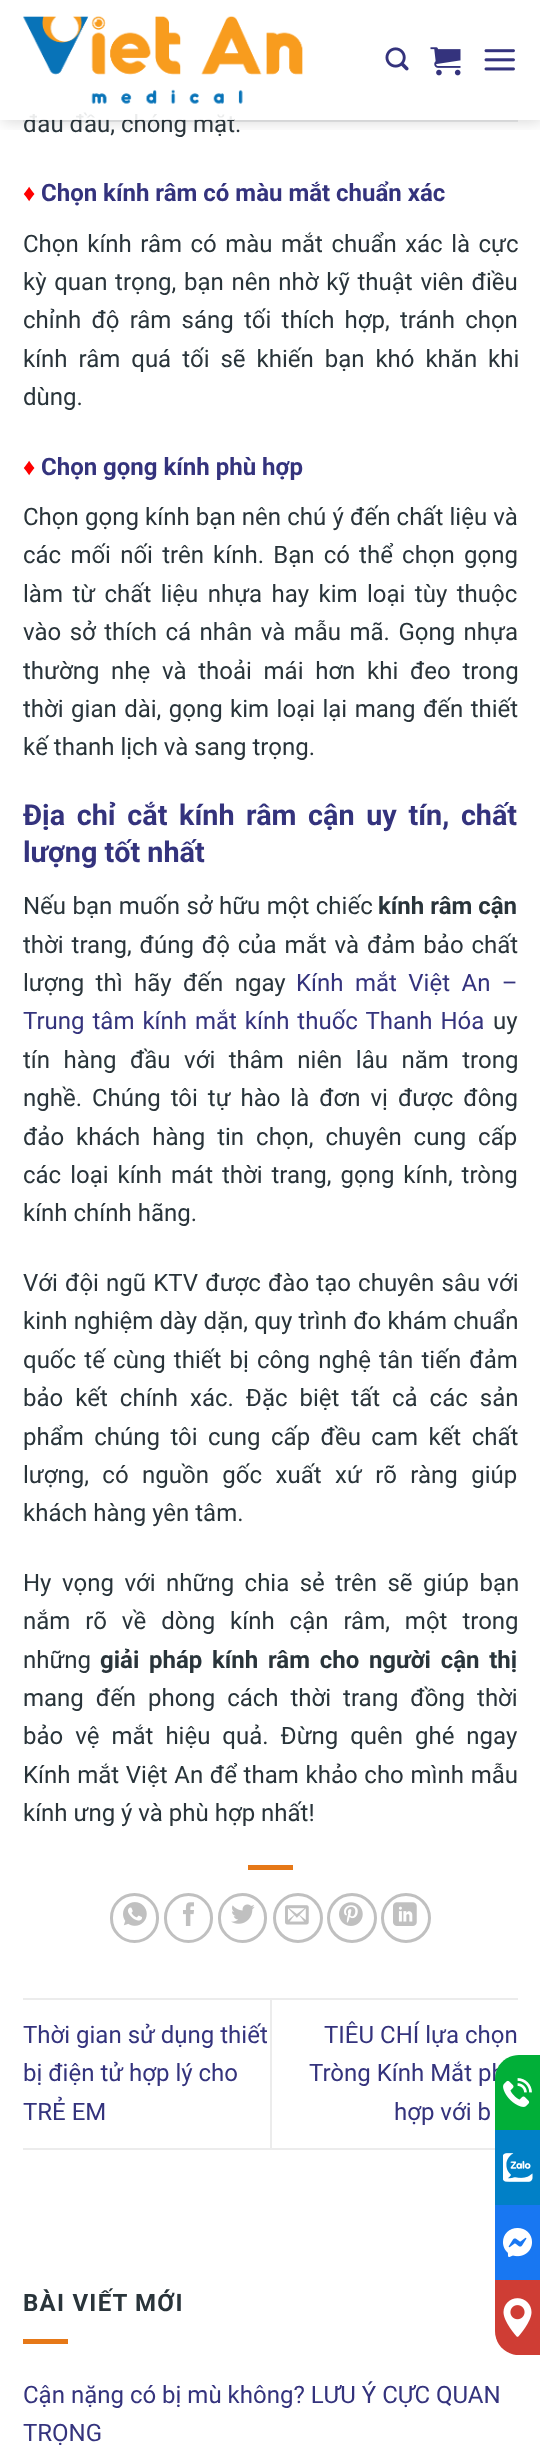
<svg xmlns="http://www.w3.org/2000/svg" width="540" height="2459">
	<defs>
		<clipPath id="clip1"><rect x="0" y="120" width="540" height="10" /></clipPath>
	</defs>
	<rect width="100%" height="100%" fill="#FFFFFF" />
	<g clip-path="url(#clip1)">
		<rect x="2" y="2" width="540" height="120" fill="#000000" fill-opacity="0.15" filter="blur(7.5px)" />
	</g>
	<image x="23" y="16" width="280" height="88" href="assets/img1.png" />
	<image x="385" y="47" width="24" height="24" href="assets/img2.png" />
	<image x="430" y="47" width="31" height="29" href="assets/img3.png" />
	<image x="484" y="49" width="31" height="22" href="assets/img4.png" />
	<rect x="23" y="120" width="495" height="2" fill="#29343A" fill-opacity="0.1" />
	<text x="23" y="132" font-family="Roboto" font-size="24" fill="#29343A">đau đầu, chóng mặt.</text>
	<rect x="26" y="112" width="208" height="8" fill="#FFFFFF" fill-opacity="0.9" />
	<text x="23" y="201" font-family="Liberation Sans" font-size="24" font-weight="700" fill="#FF0000">♦</text>
	<text x="41" y="201" font-family="Roboto" font-size="24" font-weight="700" fill="#34337D">Chọn kính râm có màu mắt chuẩn xác</text>
	<g font-family="Roboto" font-size="24" fill="#29343A">
		<text x="23" y="252" word-spacing="2.5">Chọn kính râm có màu mắt chuẩn xác là cực</text>
		<text x="23" y="290" word-spacing="1.75">kỳ quan trọng, bạn nên nhờ kỹ thuật viên điều</text>
		<text x="23" y="328" word-spacing="4.25">chỉnh độ râm sáng tối thích hợp, tránh chọn</text>
		<text x="23" y="367" word-spacing="5">kính râm quá tối sẽ khiến bạn khó khăn khi</text>
		<text x="23" y="405">dùng.</text>
	</g>
	<text x="23" y="475" font-family="Liberation Sans" font-size="24" font-weight="700" fill="#FF0000">♦</text>
	<text x="41" y="475" font-family="Roboto" font-size="24" font-weight="700" fill="#34337D">Chọn gọng kính phù hợp</text>
	<g font-family="Roboto" font-size="24" fill="#29343A">
		<text x="23" y="525" word-spacing="0.25">Chọn gọng kính bạn nên chú ý đến chất liệu và</text>
		<text x="23" y="563" word-spacing="3.25">các mối nối trên kính. Bạn có thể chọn gọng</text>
		<text x="23" y="602" word-spacing="3.5">làm từ chất liệu nhựa hay kim loại tùy thuộc</text>
		<text x="23" y="640" word-spacing="2.5">vào sở thích cá nhân và mẫu mã. Gọng nhựa</text>
		<text x="23" y="679" word-spacing="5.75">thường nhẹ và thoải mái hơn khi đeo trong</text>
		<text x="23" y="717" word-spacing="1.5">thời gian dài, gọng kim loại lại mang đến thiết</text>
		<text x="23" y="755">kế thanh lịch và sang trọng.</text>
	</g>
	<g font-family="Roboto" font-size="28.75" font-weight="700" fill="#34337D">
		<text x="23" y="825" word-spacing="4.5">Địa chỉ cắt kính râm cận uy tín, chất</text>
		<text x="23" y="862">lượng tốt nhất</text>
	</g>
	<text x="23" y="914" word-spacing="0.5" font-family="Roboto" font-size="24" fill="#29343A">Nếu bạn muốn sở hữu một chiếc</text>
	<text x="378" y="914" font-family="Roboto" font-size="24" font-weight="700" fill="#29343A">kính râm cận</text>
	<g font-family="Roboto" font-size="24" fill="#29343A">
		<text x="23" y="953" word-spacing="2">thời trang, đúng độ của mắt và đảm bảo chất</text>
		<text x="23" y="991" word-spacing="5.5">lượng thì hãy đến ngay</text>
	</g>
	<g font-family="Roboto" font-size="24" fill="#34337D">
		<text x="296" y="991" word-spacing="5.5">Kính mắt Việt An –</text>
		<text x="23" y="1029" word-spacing="2">Trung tâm kính mắt kính thuốc Thanh Hóa</text>
	</g>
	<g font-family="Roboto" font-size="24" fill="#29343A">
		<text x="493" y="1029">uy</text>
		<text x="23" y="1068" word-spacing="7.5">tín hàng đầu với thâm niên lâu năm trong</text>
		<text x="23" y="1106" word-spacing="4">nghề. Chúng tôi tự hào là đơn vị được đông</text>
		<text x="23" y="1145" word-spacing="6">đảo khách hàng tin chọn, chuyên cung cấp</text>
		<text x="23" y="1183" word-spacing="3">các loại kính mát thời trang, gọng kính, tròng</text>
		<text x="23" y="1221">kính chính hãng.</text>
		<text x="23" y="1291" word-spacing="1.25">Với đội ngũ KTV được đào tạo chuyên sâu với</text>
		<text x="23" y="1329" word-spacing="0.25">kinh nghiệm dày dặn, quy trình đo khám chuẩn</text>
		<text x="23" y="1368" word-spacing="2.25">quốc tế cùng thiết bị công nghệ tân tiến đảm</text>
		<text x="23" y="1406" word-spacing="6">bảo kết chính xác. Đặc biệt tất cả các sản</text>
		<text x="23" y="1445" word-spacing="4.5">phẩm chúng tôi cung cấp đều cam kết chất</text>
		<text x="23" y="1483" word-spacing="7.5">lượng, có nguồn gốc xuất xứ rõ ràng giúp</text>
		<text x="23" y="1521">khách hàng yên tâm.</text>
		<text x="23" y="1591" word-spacing="4.5">Hy vọng với những chia sẻ trên sẽ giúp bạn</text>
		<text x="23" y="1629" word-spacing="9">nắm rõ về dòng kính cận râm, một trong</text>
		<text x="23" y="1668">những</text>
	</g>
	<text x="100" y="1668" word-spacing="3.75" font-family="Roboto" font-size="24" font-weight="700" fill="#29343A">giải pháp kính râm cho người cận thị</text>
	<g font-family="Roboto" font-size="24" fill="#29343A">
		<text x="23" y="1706" word-spacing="6">mang đến phong cách thời trang đồng thời</text>
		<text x="23" y="1744" word-spacing="6">bảo vệ mắt hiệu quả. Đừng quên ghé ngay</text>
		<text x="23" y="1783" word-spacing="0.75">Kính mắt Việt An để tham khảo cho mình mẫu</text>
		<text x="23" y="1821">kính ưng ý và phù hợp nhất!</text>
	</g>
	<rect x="248" y="1865" width="45" height="5" fill="#E67817" />
	<rect x="111.5" y="1894.5" width="46" height="47" rx="23" fill="none" stroke="#C0C0C0" stroke-width="3" />
	<image x="123" y="1902" width="24" height="24" href="assets/img5.png" />
	<rect x="165.5" y="1894.5" width="46" height="47" rx="23" fill="none" stroke="#C0C0C0" stroke-width="3" />
	<image x="183" y="1902" width="11" height="24" href="assets/img6.png" />
	<rect x="219.5" y="1894.5" width="46" height="47" rx="23" fill="none" stroke="#C0C0C0" stroke-width="3" />
	<image x="231" y="1904" width="24" height="20" href="assets/img7.png" />
	<circle cx="298" cy="1918" r="23.5" fill="none" stroke="#C0C0C0" stroke-width="3" />
	<image x="285" y="1905" width="24" height="20" href="assets/img8.png" />
	<circle cx="352" cy="1918" r="23.5" fill="none" stroke="#C0C0C0" stroke-width="3" />
	<image x="339" y="1902" width="24" height="24" href="assets/img9.png" />
	<circle cx="406" cy="1918" r="23.5" fill="none" stroke="#C0C0C0" stroke-width="3" />
	<image x="393" y="1902" width="24" height="24" href="assets/img10.png" />
	<rect x="23" y="1998" width="495" height="2" fill="#ECECEC" />
	<rect x="23" y="2148" width="472" height="2" fill="#ECECEC" />
	<g font-family="Roboto" font-size="24" fill="#34337D">
		<text x="23" y="2043">Thời gian sử dụng thiết</text>
		<text x="23" y="2081">bị điện tử hợp lý cho</text>
		<text x="23" y="2120">TRẺ EM</text>
	</g>
	<rect x="270" y="2000" width="2" height="148" fill="#ECECEC" />
	<g font-family="Roboto" font-size="24" fill="#34337D">
		<text x="324" y="2043">TIÊU CHÍ lựa chọn</text>
		<text x="309" y="2081">Tròng Kính Mắt ph</text>
		<text x="394" y="2120">hợp với b</text>
	</g>
	<text x="23" y="2311" font-family="Roboto" font-size="24" font-weight="700" letter-spacing="1.25" fill="#29343A">BÀI VIẾT MỚI</text>
	<rect x="23" y="2339" width="45" height="5" fill="#E67817" />
	<g font-family="Roboto" font-size="24" fill="#34337D">
		<text x="23" y="2403">Cận nặng có bị mù không? LƯU Ý CỰC QUAN</text>
		<text x="23" y="2441">TRỌNG</text>
	</g>
	<path d="M519 2055H540V2130H495V2079C495 2065.5 505.5 2055 519 2055Z" fill="#01AF38" />
	<image x="503" y="2078" width="29" height="29" href="assets/img11.png" />
	<rect x="495" y="2130" width="45" height="75" fill="#0180C7" />
	<image x="503" y="2153" width="30" height="29" href="assets/img12.png" />
	<rect x="495" y="2205" width="45" height="75" fill="#1877F2" />
	<image x="503" y="2228" width="29" height="29" href="assets/img13.png" />
	<path d="M495 2280H540V2355H519C505.5 2355 495 2344.5 495 2331Z" fill="#CF3D34" />
	<image x="503" y="2298" width="29" height="39" href="assets/img14.png" />
</svg>
